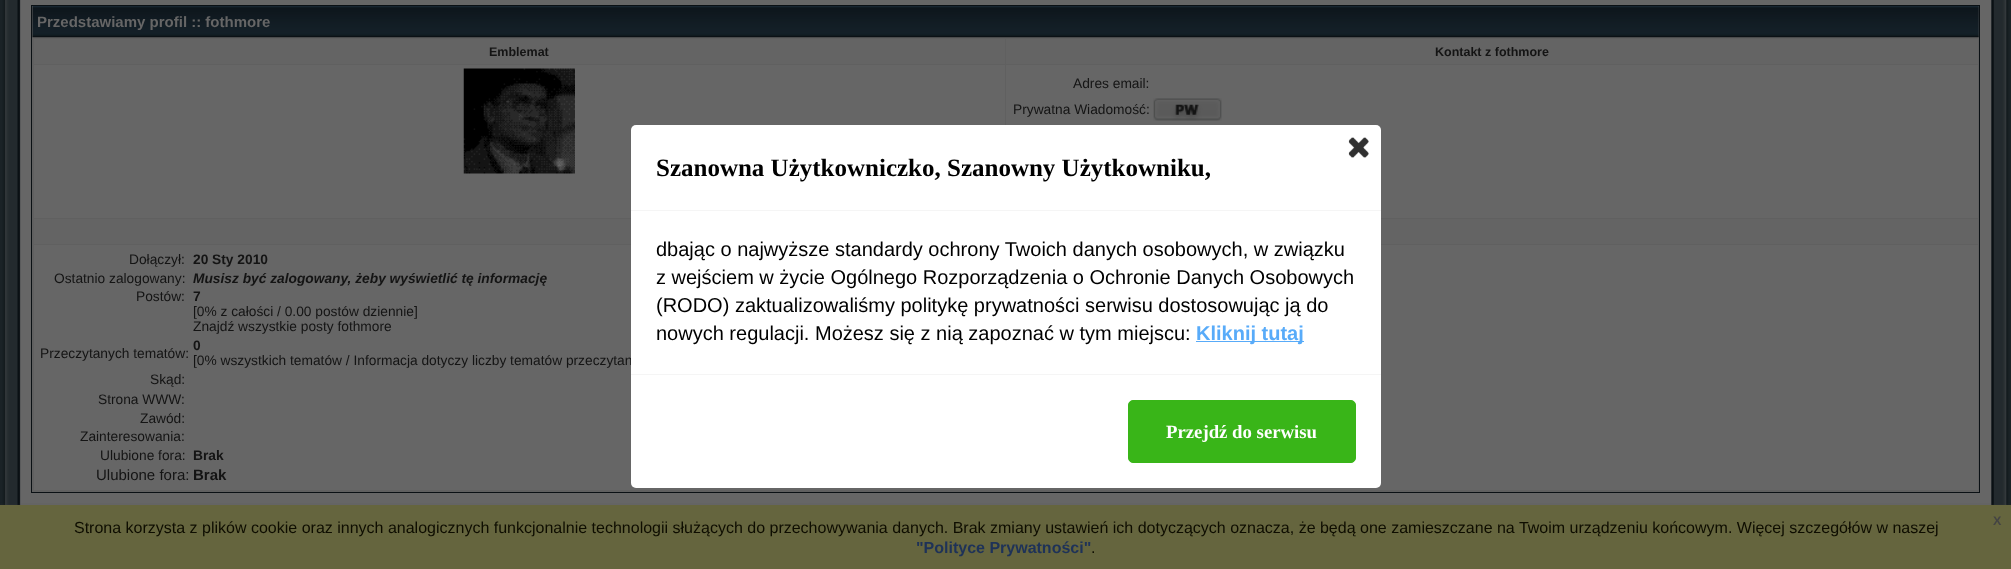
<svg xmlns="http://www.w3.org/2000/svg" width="2011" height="569">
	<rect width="100%" height="100%" fill="#1A2226" />
	<image x="2" y="0" width="29" height="505" href="assets/img1.png" />
	<rect x="31" y="0" width="1949" height="505" fill="#666666" />
	<rect x="31.5" y="5.5" width="1948" height="487" fill="#606060" stroke="#0A1014" />
	<image x="32" y="6" width="1947" height="32" href="assets/img2.png" />
	<text x="37" y="27" font-family="Liberation Sans" font-size="15" font-weight="700" fill="#666666">Przedstawiamy profil :: fothmore</text>
	<rect x="34" y="39" width="971" height="25" fill="#646464" />
	<text x="489" y="56" font-family="Liberation Sans" font-size="12.5" font-weight="700" fill="#141414">Emblemat</text>
	<rect x="1006" y="39" width="972" height="25" fill="#646464" />
	<text x="1435" y="56" font-family="Liberation Sans" font-size="12.5" font-weight="700" fill="#141414">Kontakt z fothmore</text>
	<rect x="34" y="65" width="971" height="153" fill="#666666" />
	<image x="463" y="68" width="112" height="106" href="assets/img3.png" />
	<rect x="1006" y="65" width="972" height="153" fill="#666666" />
	<g font-family="Liberation Sans" font-size="13.75" fill="#141414">
		<text x="1073" y="88">Adres email:</text>
		<text x="1013" y="114">Prywatna Wiadomość:</text>
	</g>
	<image x="1153" y="98" width="69" height="23" href="assets/img4.png" />
	<rect x="34" y="219" width="1944" height="25" fill="#646464" />
	<rect x="34" y="245" width="1944" height="245" fill="#666666" />
	<text x="129" y="264" font-family="Liberation Sans" font-size="13.75" fill="#141414">Dołączył:</text>
	<text x="193" y="264" font-family="Liberation Sans" font-size="13.75" font-weight="700" fill="#141414">20 Sty 2010</text>
	<text x="54" y="283" font-family="Liberation Sans" font-size="13.75" fill="#141414">Ostatnio zalogowany:</text>
	<text x="193" y="283" font-family="Liberation Sans" font-size="13.75" font-weight="700" font-style="italic" fill="#141414">Musisz być zalogowany, żeby wyświetlić tę informację</text>
	<text x="136" y="301" font-family="Liberation Sans" font-size="13.75" fill="#141414">Postów:</text>
	<text x="193" y="301" font-family="Liberation Sans" font-size="13.75" font-weight="700" fill="#141414">7</text>
	<g font-family="Liberation Sans" font-size="13.75" fill="#141414">
		<text x="193" y="316">[0% z całości / 0.00 postów dziennie]</text>
		<text x="193" y="331">Znajdź wszystkie posty fothmore</text>
		<text x="40" y="358">Przeczytanych tematów:</text>
	</g>
	<text x="193" y="350" font-family="Liberation Sans" font-size="13.75" font-weight="700" fill="#141414">0</text>
	<g font-family="Liberation Sans" font-size="13.75" fill="#141414">
		<text x="193" y="365">[0% wszystkich tematów / Informacja dotyczy liczby tematów przeczytan</text>
		<text x="150" y="384">Skąd:</text>
		<text x="98" y="404">Strona WWW:</text>
		<text x="140" y="423">Zawód:</text>
		<text x="80" y="441">Zainteresowania:</text>
		<text x="100" y="460">Ulubione fora:</text>
	</g>
	<text x="193" y="460" font-family="Liberation Sans" font-size="13.75" font-weight="700" fill="#141414">Brak</text>
	<text x="96" y="480" font-family="Liberation Sans" font-size="15" fill="#141414">Ulubione fora:</text>
	<text x="193" y="480" font-family="Liberation Sans" font-size="15" font-weight="700" fill="#141414">Brak</text>
	<image x="1980" y="0" width="29" height="505" href="assets/img5.png" />
	<rect x="631" y="125" width="750" height="363" rx="5" fill="#FFFFFF" />
	<rect x="631" y="210" width="750" height="1" fill="#F5F5F5" />
	<image x="1348" y="137" width="21" height="21" href="assets/img6.png" />
	<text x="656" y="176" font-family="Liberation Serif" font-size="25" font-weight="700" fill="#000000">Szanowna Użytkowniczko, Szanowny Użytkowniku,</text>
	<g font-family="Liberation Sans" font-size="20" fill="#000000">
		<text x="656" y="256">dbając o najwyższe standardy ochrony Twoich danych osobowych, w związku</text>
		<text x="656" y="284">z wejściem w życie Ogólnego Rozporządzenia o Ochronie Danych Osobowych</text>
		<text x="656" y="312">(RODO) zaktualizowaliśmy politykę prywatności serwisu dostosowując ją do</text>
		<text x="656" y="340">nowych regulacji. Możesz się z nią zapoznać w tym miejscu:</text>
	</g>
	<rect x="1196" y="341" width="108" height="1" fill="#58ABF9" />
	<text x="1196" y="340" font-family="Liberation Sans" font-size="20" font-weight="700" fill="#58ABF9">Kliknij tutaj</text>
	<rect x="631" y="374" width="750" height="1" fill="#F5F5F5" />
	<rect x="1128.5" y="400.5" width="227" height="62" rx="4.5" fill="#39B518" stroke="#39B518" />
	<text x="1166" y="438" font-family="Liberation Serif" font-size="18.75" font-weight="700" fill="#FFFFFF">Przejdź do serwisu</text>
	<rect x="0" y="508" width="2011" height="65" fill="#4B4B4B" filter="blur(2.5px)" />
	<rect x="0" y="505" width="2011" height="64" fill="#65653E" />
	<text x="74" y="533" font-family="Liberation Sans" font-size="16" fill="#0E0D00">Strona korzysta z plików cookie oraz innych analogicznych funkcjonalnie technologii służących do przechowywania danych. Brak zmiany ustawień ich dotyczących oznacza, że będą one zamieszczane na Twoim urządzeniu końcowym. Więcej szczegółów w naszej</text>
	<text x="916" y="553" font-family="Liberation Sans" font-size="16" font-weight="700" fill="#1E3258">"Polityce Prywatności"</text>
	<text x="1091" y="553" font-family="Liberation Sans" font-size="16" fill="#0E0D00">.</text>
	<text x="1993" y="525" font-family="Liberation Sans" font-size="12.5" font-weight="700" fill="#444444">X</text>
</svg>
